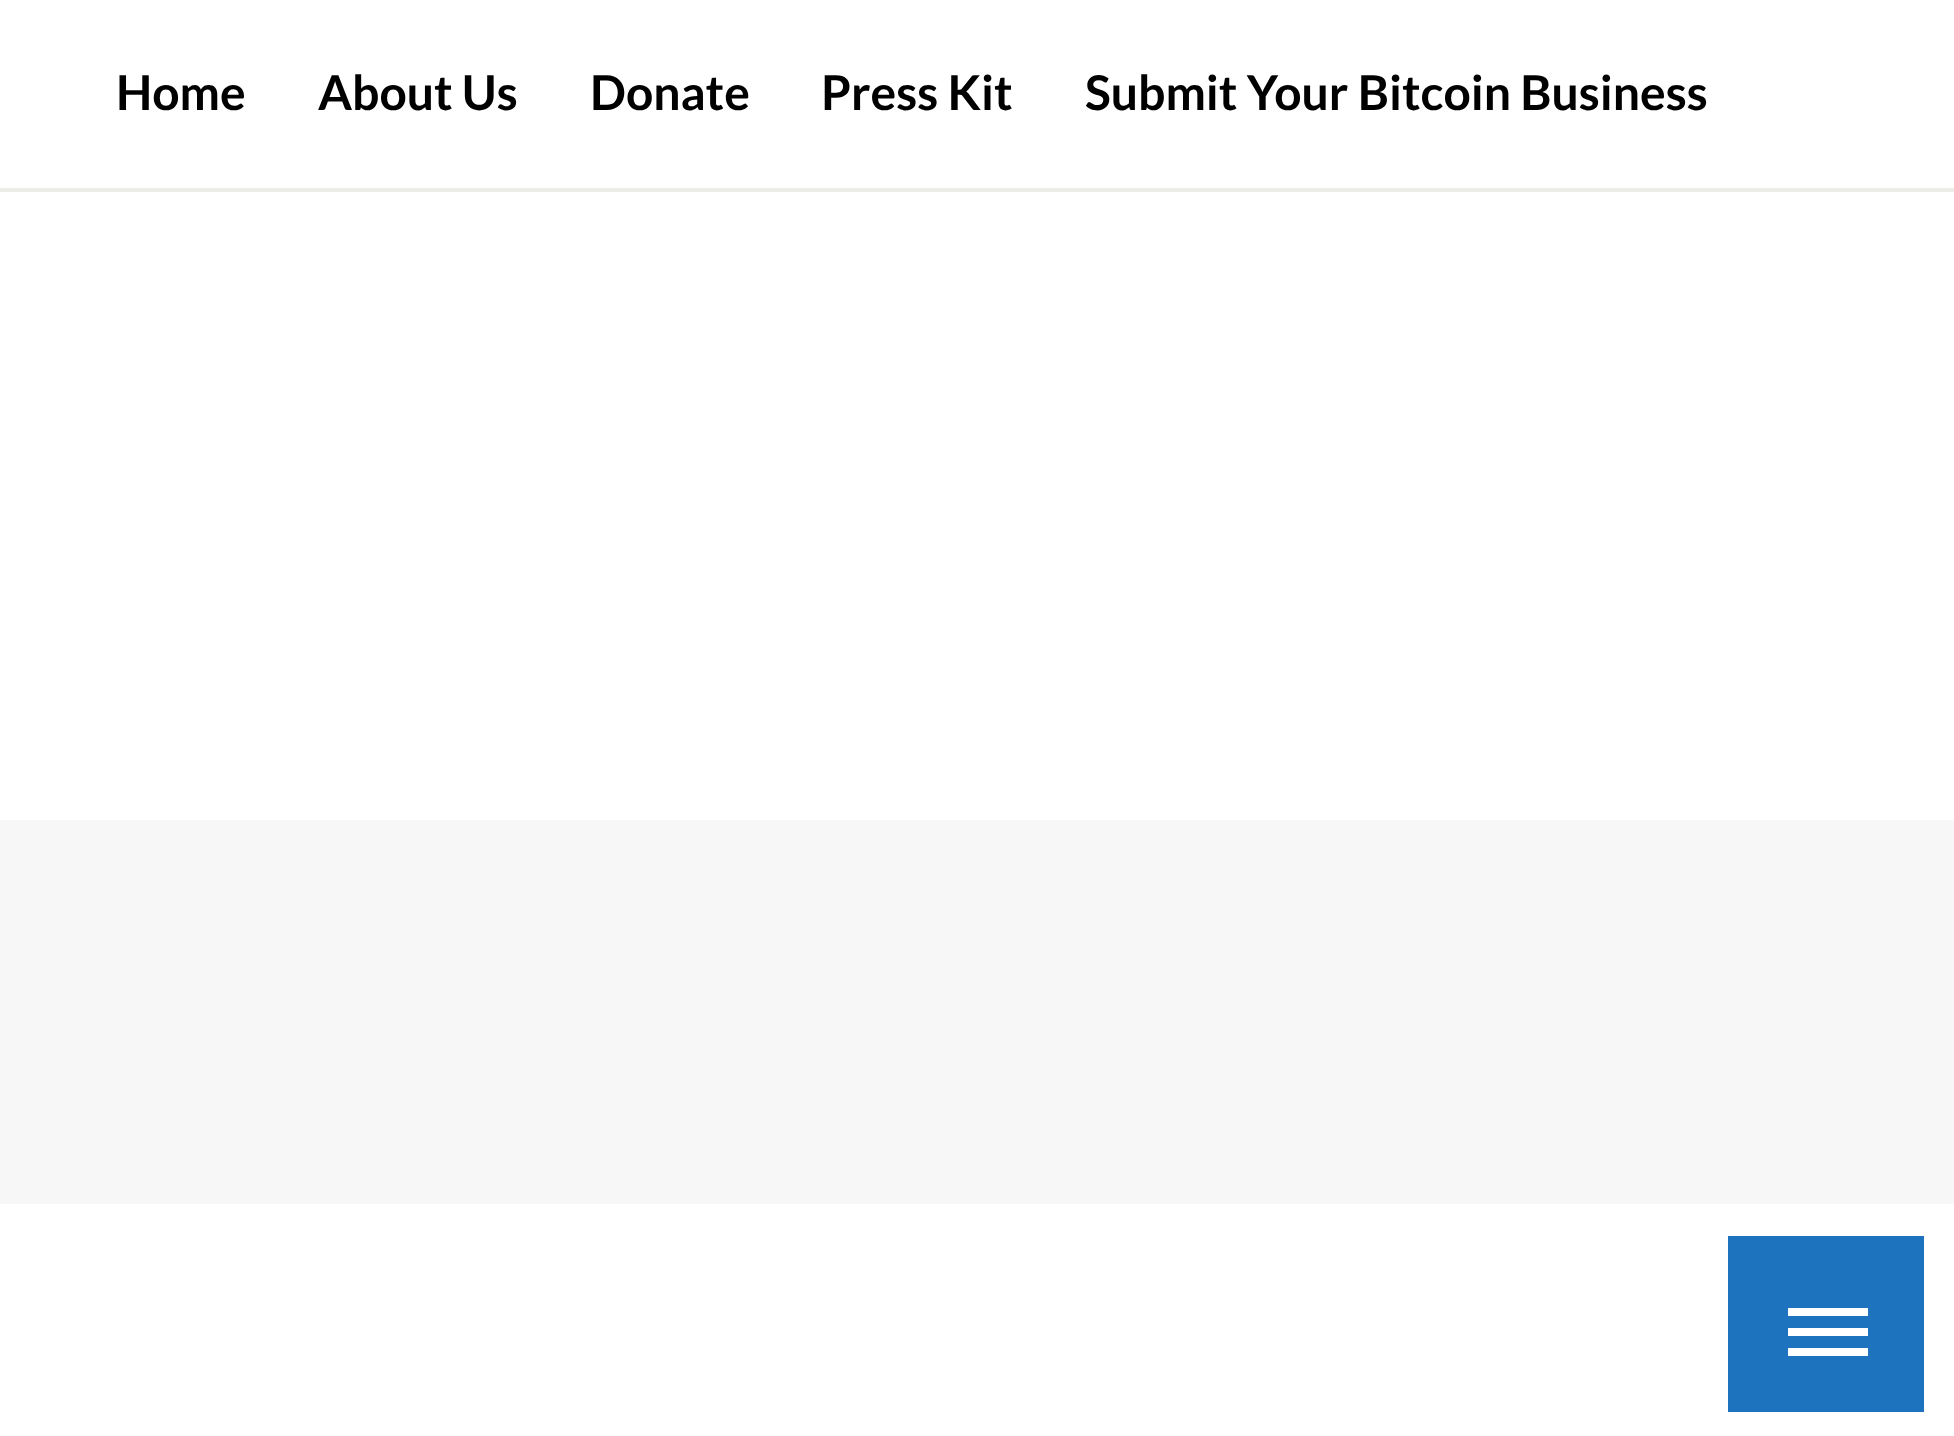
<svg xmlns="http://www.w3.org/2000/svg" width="1954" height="1436">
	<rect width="100%" height="100%" fill="#F7F7F7" />
	<rect x="0" y="0" width="1954" height="188" fill="#FFFFFF" />
	<rect x="0" y="188" width="1954" height="4" fill="#ECEDE7" />
	<g font-family="Lato" font-size="48" font-weight="700" fill="#000000">
		<text x="116" y="110">Home</text>
		<text x="318" y="110">About Us</text>
		<text x="590" y="110">Donate</text>
		<text x="821" y="110">Press Kit</text>
		<text x="1085" y="110">Submit Your Bitcoin Business</text>
	</g>
	<rect x="0" y="192" width="1954" height="628" fill="#FFFFFF" />
	<rect x="0" y="1204" width="1954" height="232" fill="#FFFFFF" />
	<rect x="1728" y="1236" width="196" height="176" fill="#1E73BE" />
	<rect x="1788" y="1308" width="80" height="8" fill="#FFFFFF" />
	<rect x="1788" y="1328" width="80" height="8" fill="#FFFFFF" />
	<rect x="1788" y="1348" width="80" height="8" fill="#FFFFFF" />
</svg>
